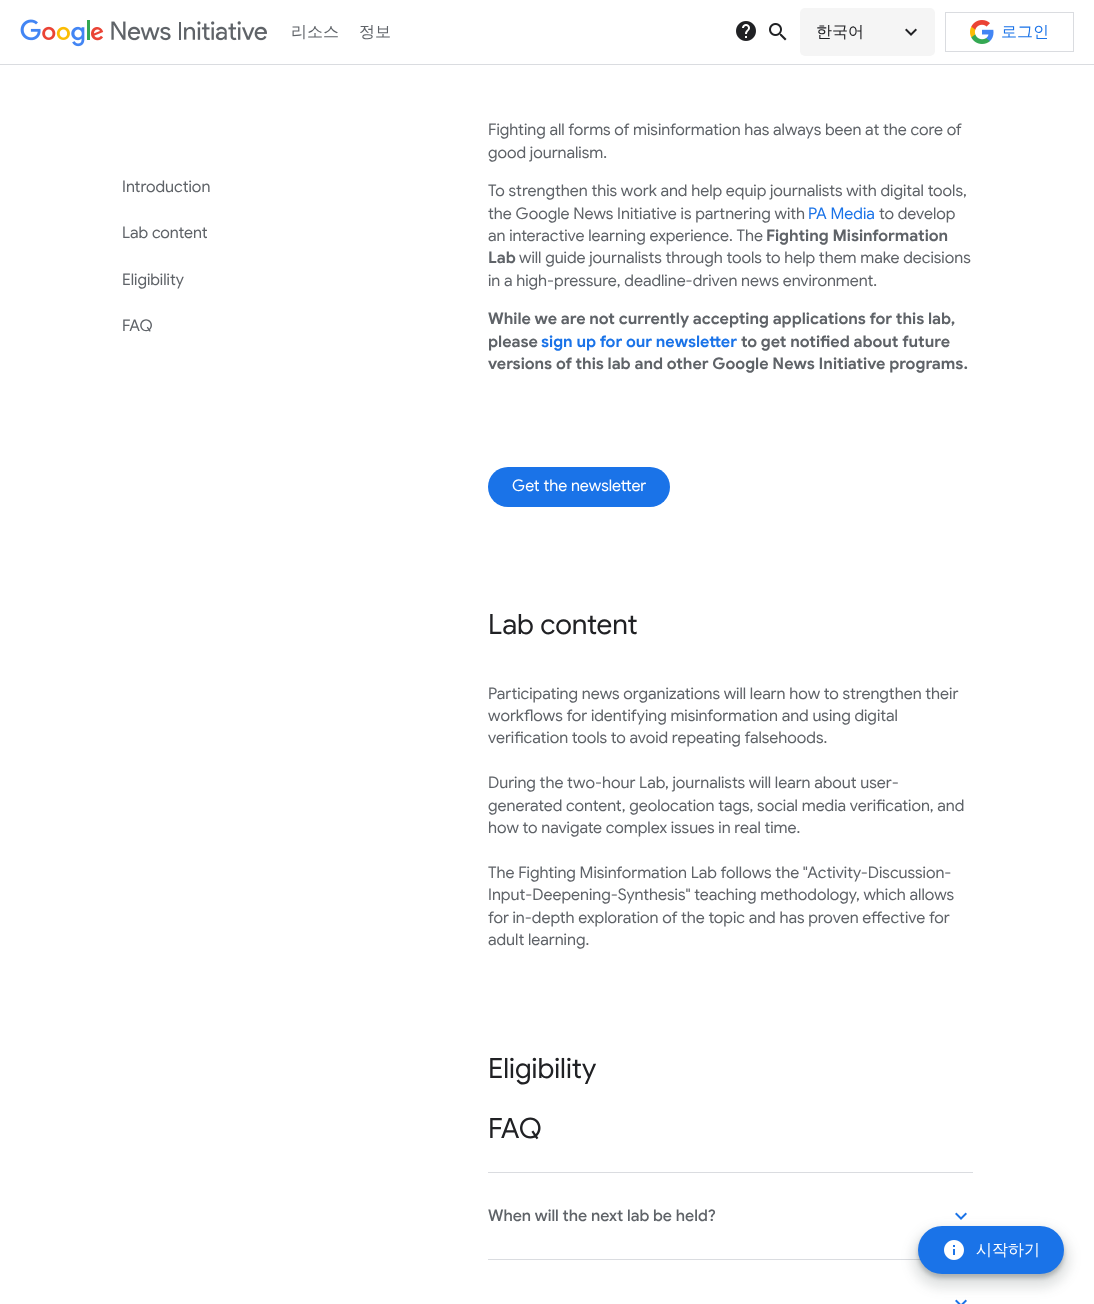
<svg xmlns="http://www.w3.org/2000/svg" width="1094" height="1304">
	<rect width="100%" height="100%" fill="#FFFFFF" />
	<rect x="0" y="64" width="1094" height="1" fill="#DADCE0" />
	<image x="20" y="19" width="247" height="28" href="assets/img1.png" />
	<g font-family="WenQuanYi Zen Hei" font-size="16" font-weight="500" fill="#5F6368">
		<text x="291" y="37">리소스</text>
		<text x="359" y="37">정보</text>
	</g>
	<image x="736" y="21" width="20" height="20" href="assets/img2.png" />
	<image x="769" y="23" width="18" height="18" href="assets/img3.png" />
	<rect x="800" y="8" width="135" height="48" rx="5" fill="#F5F5F5" />
	<text x="816" y="37" font-family="WenQuanYi Zen Hei" font-size="16" font-weight="500" fill="#202124">한국어</text>
	<image x="905" y="28" width="12" height="8" href="assets/img4.png" />
	<rect x="945.5" y="12.5" width="128" height="39" fill="none" stroke="#DADCE0" />
	<image x="970" y="20" width="24" height="24" href="assets/img5.png" />
	<text x="1001" y="37" font-family="WenQuanYi Zen Hei" font-size="16" font-weight="500" fill="#1A73E8">로그인</text>
	<g font-family="Google Sans" font-size="16" fill="#5F6368">
		<text x="122" y="192">Introduction</text>
		<text x="122" y="238">Lab content</text>
		<text x="122" y="285">Eligibility</text>
		<text x="122" y="331">FAQ</text>
		<text x="488" y="135">Fighting all forms of misinformation has always been at the core of</text>
		<text x="488" y="158">good journalism.</text>
		<text x="488" y="196">To strengthen this work and help equip journalists with digital tools,</text>
		<text x="488" y="219">the Google News Initiative is partnering with</text>
	</g>
	<text x="808" y="219" font-family="Google Sans" font-size="16" fill="#1A73E8">PA Media</text>
	<g font-family="Google Sans" font-size="16" fill="#5F6368">
		<text x="879" y="219">to develop</text>
		<text x="488" y="241">an interactive learning experience. The</text>
	</g>
	<g font-family="Google Sans" font-size="16" font-weight="700" fill="#5F6368">
		<text x="766" y="241">Fighting Misinformation</text>
		<text x="488" y="263">Lab</text>
	</g>
	<g font-family="Google Sans" font-size="16" fill="#5F6368">
		<text x="519" y="263">will guide journalists through tools to help them make decisions</text>
		<text x="488" y="286">in a high-pressure, deadline-driven news environment.</text>
	</g>
	<g font-family="Google Sans" font-size="16" font-weight="700" fill="#5F6368">
		<text x="488" y="324">While we are not currently accepting applications for this lab,</text>
		<text x="488" y="347">please</text>
	</g>
	<text x="541" y="347" font-family="Google Sans" font-size="16" font-weight="700" fill="#1A73E8">sign up for our newsletter</text>
	<g font-family="Google Sans" font-size="16" font-weight="700" fill="#5F6368">
		<text x="741" y="347">to get notified about future</text>
		<text x="488" y="369">versions of this lab and other Google News Initiative programs.</text>
	</g>
	<rect x="488" y="467" width="182" height="40" rx="20" fill="#1A73E8" />
	<text x="512" y="491" font-family="Google Sans" font-size="16" fill="#FFFFFF">Get the newsletter</text>
	<text x="488" y="634" font-family="Google Sans" font-size="28" fill="#202124">Lab content</text>
	<g font-family="Google Sans" font-size="16" fill="#5F6368">
		<text x="488" y="699">Participating news organizations will learn how to strengthen their</text>
		<text x="488" y="721">workflows for identifying misinformation and using digital</text>
		<text x="488" y="743">verification tools to avoid repeating falsehoods.</text>
		<text x="488" y="788">During the two-hour Lab, journalists will learn about user-</text>
		<text x="488" y="811">generated content, geolocation tags, social media verification, and</text>
		<text x="488" y="833">how to navigate complex issues in real time.</text>
		<text x="488" y="878">The Fighting Misinformation Lab follows the "Activity-Discussion-</text>
		<text x="488" y="900">Input-Deepening-Synthesis" teaching methodology, which allows</text>
		<text x="488" y="923">for in-depth exploration of the topic and has proven effective for</text>
		<text x="488" y="945">adult learning.</text>
	</g>
	<g font-family="Google Sans" font-size="28" fill="#202124">
		<text x="488" y="1078">Eligibility</text>
		<text x="488" y="1138">FAQ</text>
	</g>
	<rect x="488" y="1172" width="485" height="1" fill="#DADCE0" />
	<rect x="488" y="1259" width="433" height="1" fill="#DADCE0" />
	<text x="488" y="1221" font-family="Google Sans" font-size="16" font-weight="500" fill="#5F6368">When will the next lab be held?</text>
	<image x="955" y="1212" width="12" height="8" href="assets/img6.png" />
	<image x="955" y="1299" width="12" height="5" href="assets/img7.png" />
	<rect x="912" y="1228" width="158" height="60" rx="30" fill="#364043" fill-opacity="0.15" filter="blur(6px)" />
	<rect x="918" y="1230" width="146" height="48" rx="24" fill="#364043" fill-opacity="0.3" filter="blur(2px)" />
	<rect x="918" y="1226" width="146" height="48" rx="24" fill="#1A73E8" />
	<image x="944" y="1240" width="20" height="20" href="assets/img8.png" />
	<text x="976" y="1255" font-family="WenQuanYi Zen Hei" font-size="16" font-weight="500" fill="#FFFFFF">시작하기</text>
</svg>
